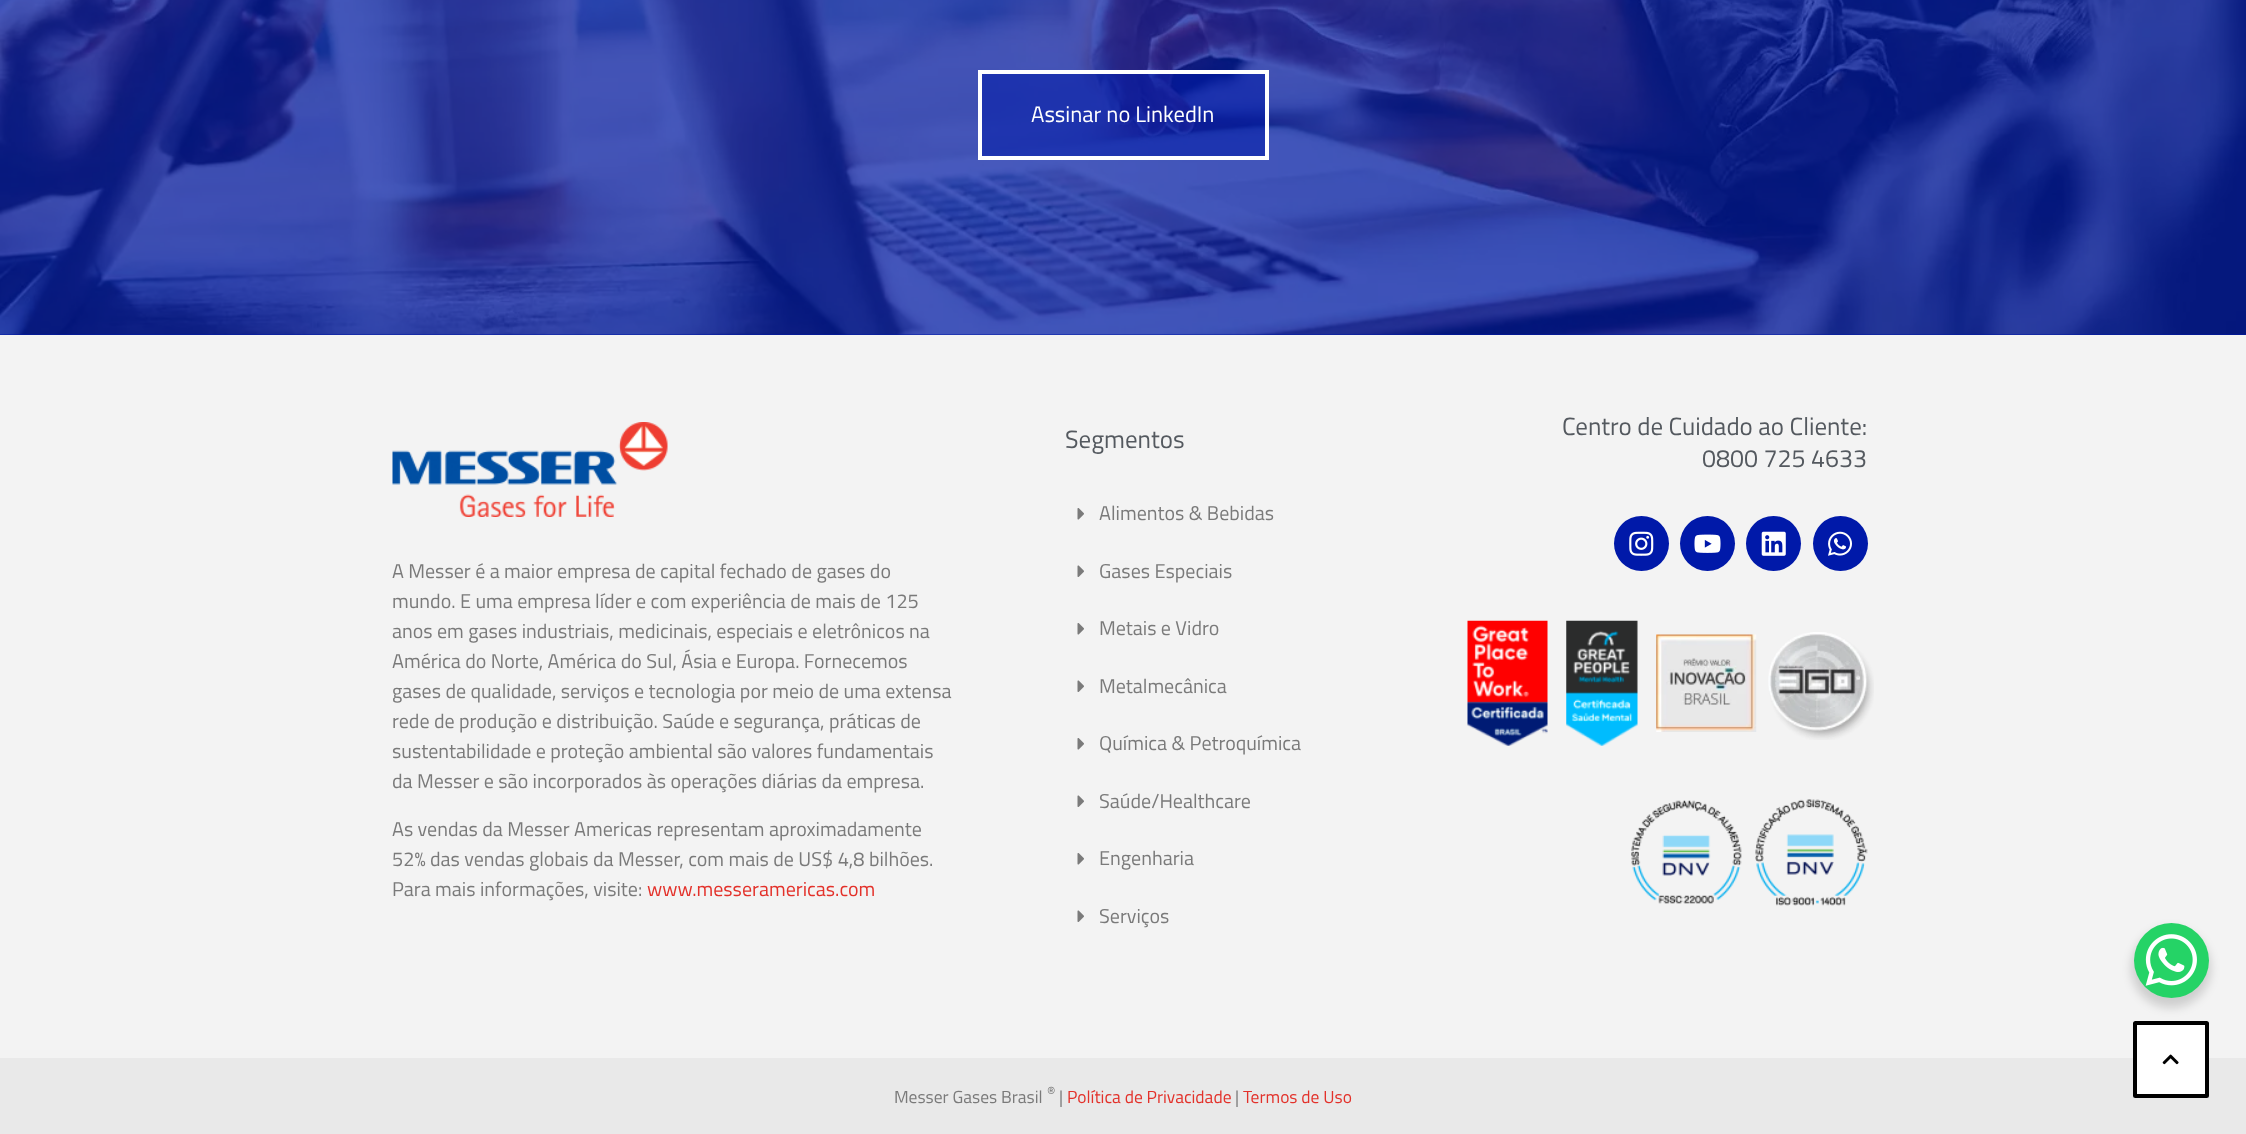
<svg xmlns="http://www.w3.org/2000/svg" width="2246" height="1134">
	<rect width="100%" height="100%" fill="#0019A9" />
	<image x="0" y="0" width="2246" height="335" href="assets/img1.png" />
	<rect x="980" y="72" width="287" height="86" fill="#0019A9" fill-opacity="0.54" stroke="#FFFFFF" stroke-width="4" />
	<text x="1031" y="122" font-family="Titillium Web" font-size="22.5" fill="#FFFFFF">Assinar no LinkedIn</text>
	<rect x="0" y="335" width="2246" height="723" fill="#F3F3F3" />
	<image x="392" y="422" width="276" height="95" href="assets/img2.png" />
	<g font-family="Titillium Web" font-size="20" fill="#7A7A7A">
		<text x="392" y="578">A Messer é a maior empresa de capital fechado de gases do</text>
		<text x="392" y="608">mundo. E uma empresa líder e com experiência de mais de 125</text>
		<text x="392" y="638">anos em gases industriais, medicinais, especiais e eletrônicos na</text>
		<text x="392" y="668">América do Norte, América do Sul, Ásia e Europa. Fornecemos</text>
		<text x="392" y="698">gases de qualidade, serviços e tecnologia por meio de uma extensa</text>
		<text x="392" y="728">rede de produção e distribuição. Saúde e segurança, práticas de</text>
		<text x="392" y="758">sustentabilidade e proteção ambiental são valores fundamentais</text>
		<text x="392" y="788">da Messer e são incorporados às operações diárias da empresa.</text>
		<text x="392" y="836">As vendas da Messer Americas representam aproximadamente</text>
		<text x="392" y="866">52% das vendas globais da Messer, com mais de US$ 4,8 bilhões.</text>
		<text x="392" y="896">Para mais informações, visite:</text>
	</g>
	<text x="647" y="896" font-family="Titillium Web" font-size="20" fill="#E3312A">www.messeramericas.com</text>
	<text x="1065" y="448" font-family="Titillium Web" font-size="25" fill="#54595F">Segmentos</text>
	<image x="1077" y="508" width="7" height="12" href="assets/img3.png" />
	<text x="1099" y="520" font-family="Titillium Web" font-size="20" fill="#7A7A7A">Alimentos &amp; Bebidas</text>
	<image x="1077" y="565" width="7" height="12" href="assets/img4.png" />
	<text x="1099" y="578" font-family="Titillium Web" font-size="20" fill="#7A7A7A">Gases Especiais</text>
	<image x="1077" y="623" width="7" height="12" href="assets/img3.png" />
	<text x="1099" y="635" font-family="Titillium Web" font-size="20" fill="#7A7A7A">Metais e Vidro</text>
	<image x="1077" y="680" width="7" height="12" href="assets/img4.png" />
	<text x="1099" y="693" font-family="Titillium Web" font-size="20" fill="#7A7A7A">Metalmecânica</text>
	<image x="1077" y="738" width="7" height="12" href="assets/img3.png" />
	<text x="1099" y="750" font-family="Titillium Web" font-size="20" fill="#7A7A7A">Química &amp; Petroquímica</text>
	<image x="1077" y="795" width="7" height="12" href="assets/img4.png" />
	<text x="1099" y="808" font-family="Titillium Web" font-size="20" fill="#7A7A7A">Saúde/Healthcare</text>
	<image x="1077" y="853" width="7" height="12" href="assets/img3.png" />
	<text x="1099" y="865" font-family="Titillium Web" font-size="20" fill="#7A7A7A">Engenharia</text>
	<image x="1077" y="910" width="7" height="12" href="assets/img4.png" />
	<text x="1099" y="923" font-family="Titillium Web" font-size="20" fill="#7A7A7A">Serviços</text>
	<g font-family="Titillium Web" font-size="25" fill="#54595F">
		<text x="1562" y="435">Centro de Cuidado ao Cliente:</text>
		<text x="1702" y="467">0800 725 4633</text>
	</g>
	<circle cx="1641.5" cy="543.5" r="27.5" fill="#0019A9" />
	<image x="1629" y="531" width="25" height="25" href="assets/img5.png" />
	<circle cx="1707.5" cy="543.5" r="27.5" fill="#0019A9" />
	<image x="1694" y="534" width="27" height="19" href="assets/img6.png" />
	<circle cx="1773.5" cy="543.5" r="27.5" fill="#0019A9" />
	<image x="1761" y="531" width="25" height="25" href="assets/img7.png" />
	<circle cx="1840.5" cy="543.5" r="27.5" fill="#0019A9" />
	<image x="1828" y="531" width="24" height="25" href="assets/img8.png" />
	<image x="1467" y="620" width="81" height="126" href="assets/img9.png" />
	<image x="1566" y="620" width="72" height="126" href="assets/img10.png" />
	<image x="1656" y="634" width="101" height="98" href="assets/img11.png" />
	<image x="1768" y="632" width="106" height="108" href="assets/img12.png" />
	<image x="1631" y="800" width="111" height="104" href="assets/img13.png" />
	<image x="1755" y="799" width="113" height="107" href="assets/img14.png" />
	<rect x="0" y="1058" width="2246" height="76" fill="#E9E9E9" />
	<text x="894" y="1103" font-family="Titillium Web" font-size="17.5" fill="#7A7A7A">Messer Gases Brasil</text>
	<text x="1047" y="1096" font-family="Titillium Web" font-size="13" fill="#7A7A7A">®</text>
	<text x="1059" y="1103" font-family="Titillium Web" font-size="17.5" fill="#7A7A7A">|</text>
	<text x="1067" y="1103" font-family="Titillium Web" font-size="17.5" fill="#E3312A">Política de Privacidade</text>
	<text x="1235" y="1103" font-family="Titillium Web" font-size="17.5" fill="#7A7A7A">|</text>
	<text x="1243" y="1103" font-family="Titillium Web" font-size="17.5" fill="#E3312A">Termos de Uso</text>
	<rect x="2131" y="928" width="80" height="80" rx="40" fill="#000000" fill-opacity="0.15" filter="blur(5px)" />
	<rect x="2135" y="1023" width="72" height="73" rx="0.5" fill="#FFFFFF" stroke="#000000" stroke-width="4" />
	<image x="2162" y="1054" width="17" height="11" href="assets/img15.png" />
	<circle cx="2171.5" cy="960.5" r="37.5" fill="#25D366" />
	<image x="2145" y="934" width="52" height="52" href="assets/img16.png" />
</svg>
